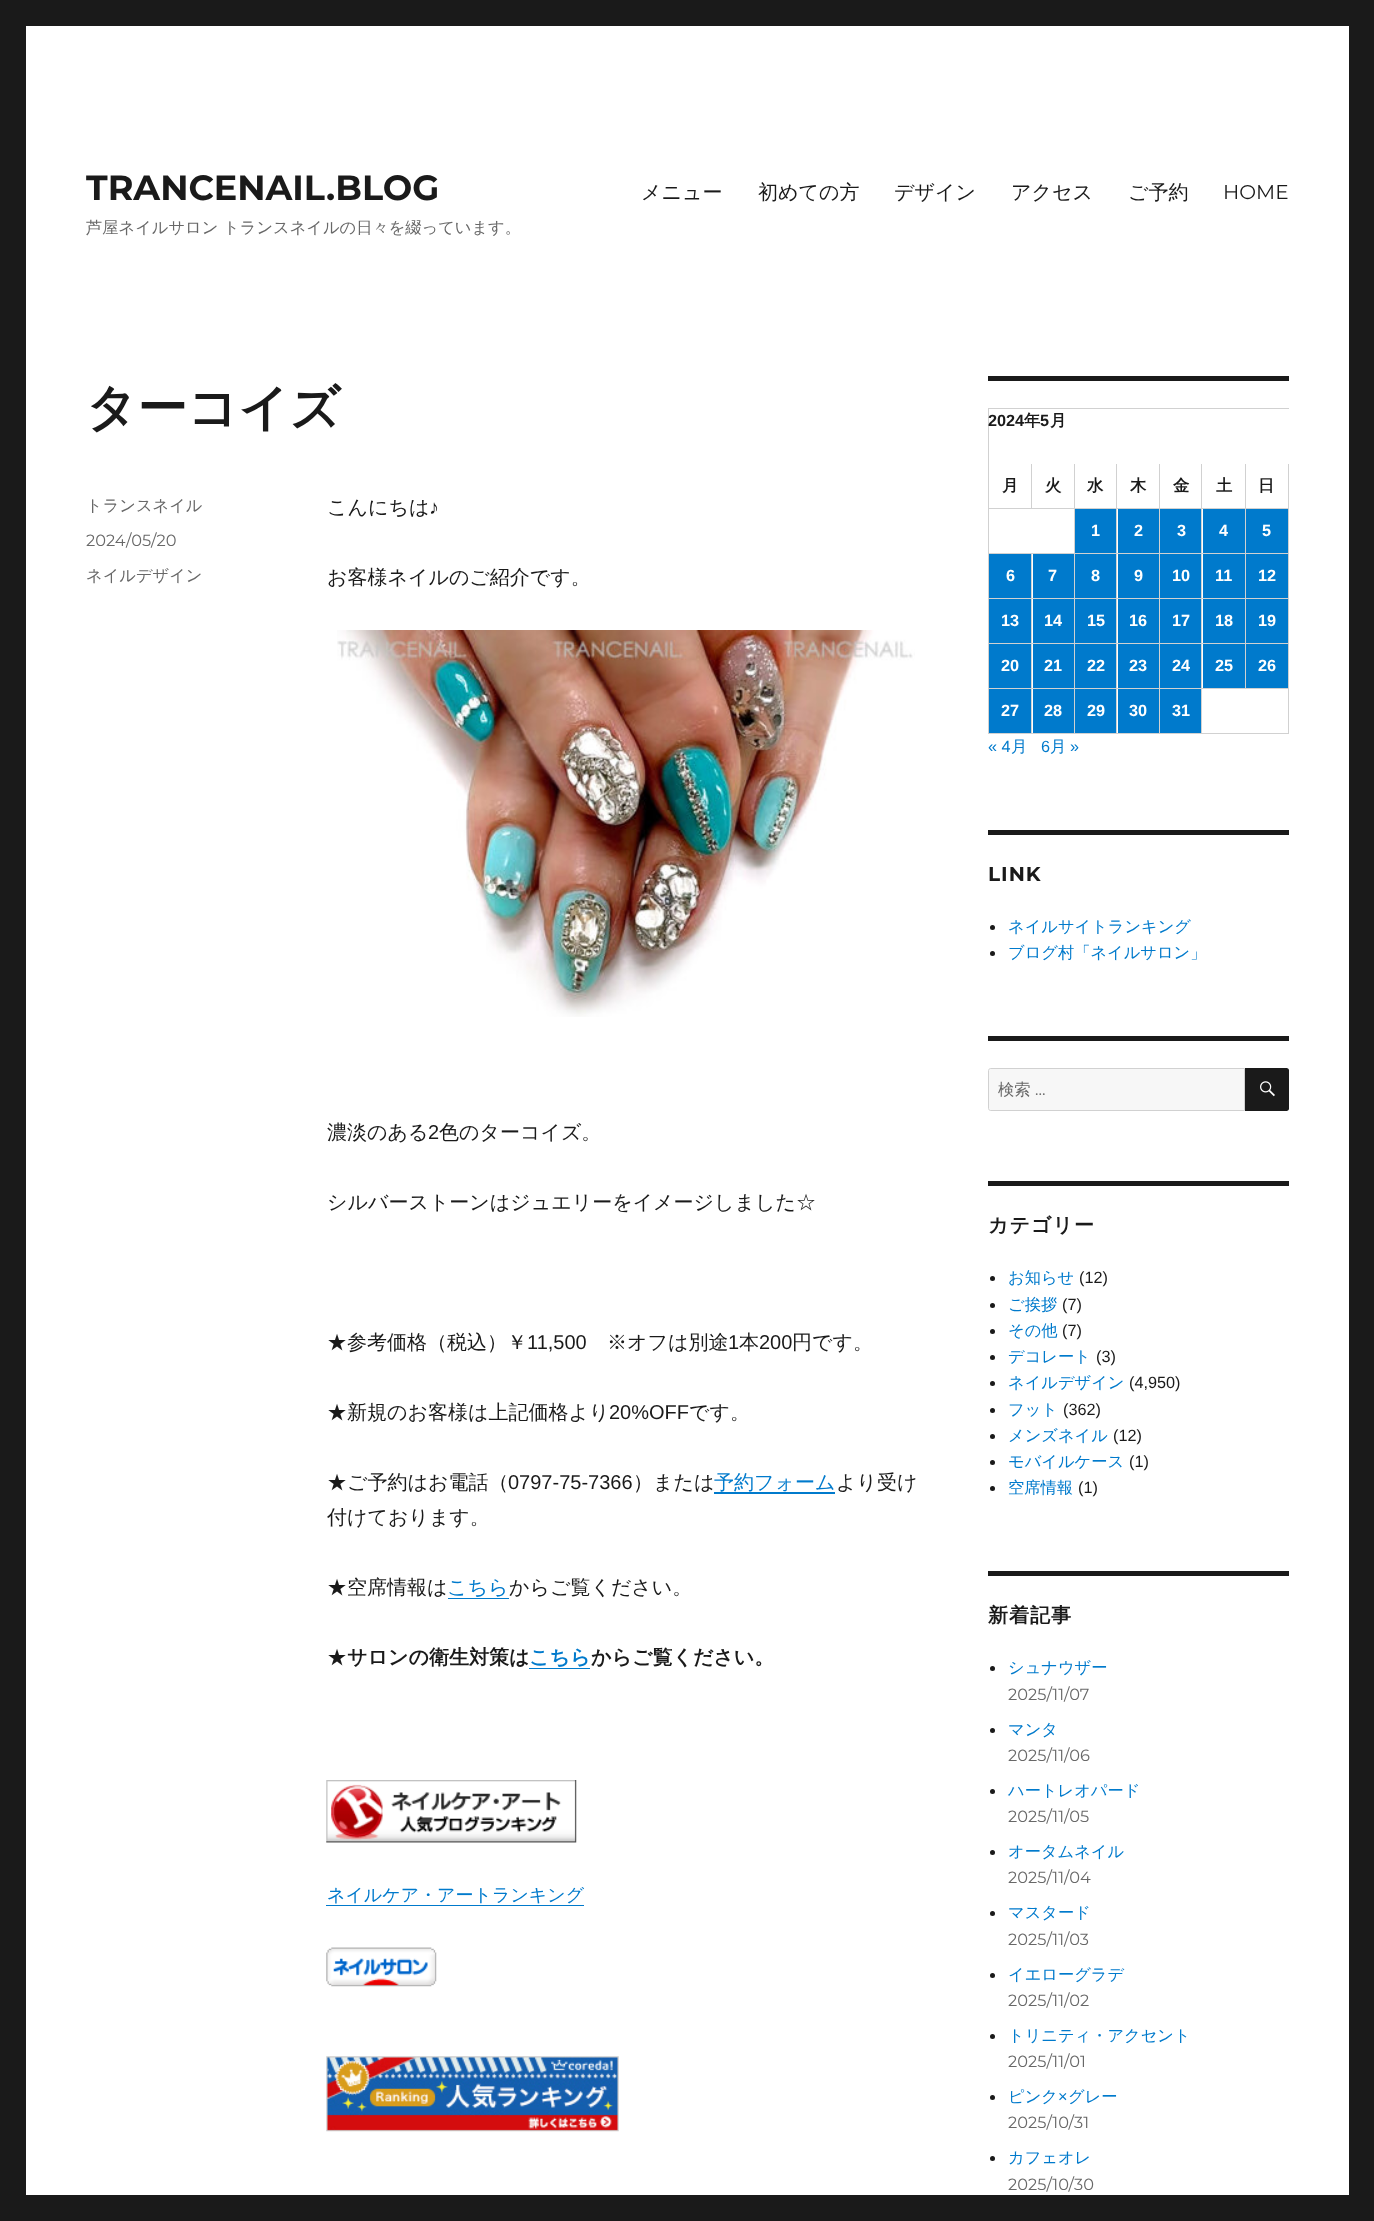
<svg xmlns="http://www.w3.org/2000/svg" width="1374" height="2221">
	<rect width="100%" height="100%" fill="#1A1A1A" />
	<rect x="26" y="26" width="1323" height="2169" fill="#FFFFFF" />
	<text x="86" y="200" font-family="Montserrat" font-size="35" font-weight="700" fill="#1A1A1A">TRANCENAIL.BLOG</text>
	<text x="86" y="233" font-family="WenQuanYi Zen Hei" font-size="16.25" font-weight="500" fill="#686868">芦屋ネイルサロン トランスネイルの日々を綴っています。</text>
	<g font-family="WenQuanYi Zen Hei" font-size="20" font-weight="500" fill="#1A1A1A">
		<text x="641" y="199">メニュー</text>
		<text x="758" y="199">初めての方</text>
		<text x="894" y="199">デザイン</text>
		<text x="1011" y="199">アクセス</text>
		<text x="1128" y="199">ご予約</text>
	</g>
	<text x="1223" y="199" font-family="Montserrat" font-size="20" fill="#1A1A1A">HOME</text>
	<text x="86" y="425" font-family="WenQuanYi Zen Hei" font-size="50" font-weight="700" fill="#1A1A1A">ターコイズ</text>
	<text x="86" y="511" font-family="WenQuanYi Zen Hei" font-size="16.25" font-weight="500" fill="#686868">トランスネイル</text>
	<text x="86" y="546" font-family="Montserrat" font-size="16.25" fill="#686868">2024/05/20</text>
	<text x="86" y="581" font-family="WenQuanYi Zen Hei" font-size="16.25" font-weight="500" fill="#686868">ネイルデザイン</text>
	<text x="327" y="514" font-family="WenQuanYi Zen Hei" font-size="20" font-weight="500" fill="#1A1A1A">こんにちは</text>
	<text x="429" y="514" font-family="Liberation Sans" font-size="20" fill="#1A1A1A">♪</text>
	<text x="327" y="584" font-family="WenQuanYi Zen Hei" font-size="20" font-weight="500" fill="#1A1A1A">お客様ネイルのご紹介です。</text>
	<image x="337" y="630" width="578" height="387" href="assets/img1.png" />
	<text x="327" y="1139" font-family="WenQuanYi Zen Hei" font-size="20" font-weight="500" fill="#1A1A1A">濃淡のある</text>
	<text x="428" y="1139" font-family="Liberation Sans" font-size="20" fill="#1A1A1A">2</text>
	<g font-family="WenQuanYi Zen Hei" font-size="20" font-weight="500" fill="#1A1A1A">
		<text x="439" y="1139">色のターコイズ。</text>
		<text x="327" y="1209">シルバーストーンはジュエリーをイメージしました☆</text>
		<text x="327" y="1349">★参考価格（税込）￥</text>
	</g>
	<text x="527" y="1349" font-family="Liberation Sans" font-size="20" fill="#1A1A1A">11,500</text>
	<text x="607" y="1349" font-family="WenQuanYi Zen Hei" font-size="20" font-weight="500" fill="#1A1A1A">※オフは別途</text>
	<text x="728" y="1349" font-family="Liberation Sans" font-size="20" fill="#1A1A1A">1</text>
	<text x="739" y="1349" font-family="WenQuanYi Zen Hei" font-size="20" font-weight="500" fill="#1A1A1A">本</text>
	<text x="759" y="1349" font-family="Liberation Sans" font-size="20" fill="#1A1A1A">200</text>
	<g font-family="WenQuanYi Zen Hei" font-size="20" font-weight="500" fill="#1A1A1A">
		<text x="792" y="1349">円です。</text>
		<text x="327" y="1419">★新規のお客様は上記価格より</text>
	</g>
	<text x="609" y="1419" font-family="Liberation Sans" font-size="20" fill="#1A1A1A">20%OFF</text>
	<g font-family="WenQuanYi Zen Hei" font-size="20" font-weight="500" fill="#1A1A1A">
		<text x="689" y="1419">です。</text>
		<text x="327" y="1489">★ご予約はお電話（</text>
	</g>
	<text x="508" y="1489" font-family="Liberation Sans" font-size="20" fill="#1A1A1A">0797-75-7366</text>
	<text x="633" y="1489" font-family="WenQuanYi Zen Hei" font-size="20" font-weight="500" fill="#1A1A1A">）または</text>
	<text x="714" y="1489" font-family="WenQuanYi Zen Hei" font-size="20" font-weight="500" fill="#007ACC">予約フォーム</text>
	<rect x="714" y="1492" width="121" height="2" fill="#007ACC" />
	<g font-family="WenQuanYi Zen Hei" font-size="20" font-weight="500" fill="#1A1A1A">
		<text x="836" y="1489">より受け</text>
		<text x="327" y="1524">付けております。</text>
		<text x="327" y="1594">★空席情報は</text>
	</g>
	<text x="447" y="1594" font-family="WenQuanYi Zen Hei" font-size="20" font-weight="500" fill="#007ACC">こちら</text>
	<path d="M448 1598V1599H509V1578V1598Z" fill="#007ACC" />
	<g font-family="WenQuanYi Zen Hei" font-size="20" font-weight="500" fill="#1A1A1A">
		<text x="509" y="1594">からご覧ください。</text>
		<text x="327" y="1664">★</text>
	</g>
	<text x="347" y="1664" font-family="WenQuanYi Zen Hei" font-size="20" font-weight="700" fill="#1A1A1A">サロンの衛生対策は</text>
	<text x="529" y="1664" font-family="WenQuanYi Zen Hei" font-size="20" font-weight="700" fill="#007ACC">こちら</text>
	<rect x="529" y="1668" width="61" height="1" fill="#007ACC" />
	<text x="591" y="1664" font-family="WenQuanYi Zen Hei" font-size="20" font-weight="700" fill="#1A1A1A">からご覧ください。</text>
	<image x="326" y="1780" width="251" height="63" href="assets/img2.png" />
	<text x="327" y="1901" font-family="WenQuanYi Zen Hei" font-size="18" font-weight="500" fill="#007ACC">ネイルケア・アートランキング</text>
	<path d="M326 1886V1906H584V1886V1905H326Z" fill="#007ACC" />
	<image x="326" y="1947" width="111" height="40" href="assets/img3.png" />
	<image x="326" y="2056" width="293" height="76" href="assets/img4.png" />
	<rect x="988" y="376" width="301" height="5" fill="#1A1A1A" />
	<rect x="988" y="408" width="301" height="1" fill="#D1D1D1" />
	<rect x="988" y="408" width="1" height="326" fill="#D1D1D1" />
	<text x="988" y="426" font-family="Liberation Sans" font-size="16.25" font-weight="700" fill="#1A1A1A">2024</text>
	<text x="1024" y="426" font-family="WenQuanYi Zen Hei" font-size="16.25" font-weight="700" fill="#1A1A1A">年</text>
	<text x="1040" y="426" font-family="Liberation Sans" font-size="16.25" font-weight="700" fill="#1A1A1A">5</text>
	<text x="1050" y="426" font-family="WenQuanYi Zen Hei" font-size="16.25" font-weight="700" fill="#1A1A1A">月</text>
	<rect x="1031" y="464" width="1" height="45" fill="#D1D1D1" />
	<rect x="989" y="508" width="44" height="1" fill="#D1D1D1" />
	<text x="1002" y="491" font-family="WenQuanYi Zen Hei" font-size="16.25" font-weight="700" fill="#1A1A1A">月</text>
	<rect x="1074" y="464" width="1" height="270" fill="#D1D1D1" />
	<rect x="1033" y="508" width="42" height="1" fill="#D1D1D1" />
	<text x="1045" y="491" font-family="WenQuanYi Zen Hei" font-size="16.25" font-weight="700" fill="#1A1A1A">火</text>
	<rect x="1116" y="464" width="1" height="270" fill="#D1D1D1" />
	<rect x="1075" y="508" width="43" height="1" fill="#D1D1D1" />
	<text x="1087" y="491" font-family="WenQuanYi Zen Hei" font-size="16.25" font-weight="700" fill="#1A1A1A">水</text>
	<rect x="1159" y="464" width="1" height="270" fill="#D1D1D1" />
	<rect x="1118" y="508" width="42" height="1" fill="#D1D1D1" />
	<text x="1130" y="491" font-family="WenQuanYi Zen Hei" font-size="16.25" font-weight="700" fill="#1A1A1A">木</text>
	<rect x="1201" y="464" width="1" height="270" fill="#D1D1D1" />
	<rect x="1160" y="508" width="43" height="1" fill="#D1D1D1" />
	<text x="1173" y="491" font-family="WenQuanYi Zen Hei" font-size="16.25" font-weight="700" fill="#1A1A1A">金</text>
	<rect x="1245" y="464" width="1" height="225" fill="#D1D1D1" />
	<rect x="1203" y="508" width="43" height="1" fill="#D1D1D1" />
	<text x="1216" y="491" font-family="WenQuanYi Zen Hei" font-size="16.25" font-weight="700" fill="#1A1A1A">土</text>
	<rect x="1288" y="464" width="1" height="270" fill="#D1D1D1" />
	<rect x="1246" y="508" width="43" height="1" fill="#D1D1D1" />
	<text x="1258" y="491" font-family="WenQuanYi Zen Hei" font-size="16.25" font-weight="700" fill="#1A1A1A">日</text>
	<rect x="1075" y="509" width="41" height="44" fill="#007ACC" />
	<text x="1091" y="536" font-family="Liberation Sans" font-size="16.25" font-weight="700" fill="#FFFFFF">1</text>
	<rect x="1118" y="509" width="41" height="44" fill="#007ACC" />
	<text x="1134" y="536" font-family="Liberation Sans" font-size="16.25" font-weight="700" fill="#FFFFFF">2</text>
	<rect x="1160" y="509" width="41" height="44" fill="#007ACC" />
	<text x="1177" y="536" font-family="Liberation Sans" font-size="16.25" font-weight="700" fill="#FFFFFF">3</text>
	<rect x="1203" y="509" width="42" height="44" fill="#007ACC" />
	<text x="1219" y="536" font-family="Liberation Sans" font-size="16.25" font-weight="700" fill="#FFFFFF">4</text>
	<rect x="1246" y="509" width="42" height="44" fill="#007ACC" />
	<text x="1262" y="536" font-family="Liberation Sans" font-size="16.25" font-weight="700" fill="#FFFFFF">5</text>
	<rect x="989" y="553" width="300" height="1" fill="#D1D1D1" />
	<rect x="1031" y="554" width="1" height="180" fill="#D1D1D1" />
	<rect x="989" y="598" width="300" height="1" fill="#D1D1D1" />
	<rect x="989" y="554" width="42" height="44" fill="#007ACC" />
	<text x="1006" y="581" font-family="Liberation Sans" font-size="16.25" font-weight="700" fill="#FFFFFF">6</text>
	<rect x="1033" y="554" width="41" height="44" fill="#007ACC" />
	<text x="1048" y="581" font-family="Liberation Sans" font-size="16.25" font-weight="700" fill="#FFFFFF">7</text>
	<rect x="1075" y="554" width="41" height="44" fill="#007ACC" />
	<text x="1091" y="581" font-family="Liberation Sans" font-size="16.25" font-weight="700" fill="#FFFFFF">8</text>
	<rect x="1118" y="554" width="41" height="44" fill="#007ACC" />
	<text x="1134" y="581" font-family="Liberation Sans" font-size="16.25" font-weight="700" fill="#FFFFFF">9</text>
	<rect x="1160" y="554" width="41" height="44" fill="#007ACC" />
	<text x="1172" y="581" font-family="Liberation Sans" font-size="16.25" font-weight="700" fill="#FFFFFF">10</text>
	<rect x="1203" y="554" width="42" height="44" fill="#007ACC" />
	<text x="1215" y="581" font-family="Liberation Sans" font-size="16.25" font-weight="700" fill="#FFFFFF">11</text>
	<rect x="1246" y="554" width="42" height="44" fill="#007ACC" />
	<text x="1258" y="581" font-family="Liberation Sans" font-size="16.25" font-weight="700" fill="#FFFFFF">12</text>
	<rect x="989" y="643" width="300" height="1" fill="#D1D1D1" />
	<rect x="989" y="599" width="42" height="44" fill="#007ACC" />
	<text x="1001" y="626" font-family="Liberation Sans" font-size="16.25" font-weight="700" fill="#FFFFFF">13</text>
	<rect x="1033" y="599" width="41" height="44" fill="#007ACC" />
	<text x="1044" y="626" font-family="Liberation Sans" font-size="16.25" font-weight="700" fill="#FFFFFF">14</text>
	<rect x="1075" y="599" width="41" height="44" fill="#007ACC" />
	<text x="1087" y="626" font-family="Liberation Sans" font-size="16.25" font-weight="700" fill="#FFFFFF">15</text>
	<rect x="1118" y="599" width="41" height="44" fill="#007ACC" />
	<text x="1129" y="626" font-family="Liberation Sans" font-size="16.25" font-weight="700" fill="#FFFFFF">16</text>
	<rect x="1160" y="599" width="41" height="44" fill="#007ACC" />
	<text x="1172" y="626" font-family="Liberation Sans" font-size="16.25" font-weight="700" fill="#FFFFFF">17</text>
	<rect x="1203" y="599" width="42" height="44" fill="#007ACC" />
	<text x="1215" y="626" font-family="Liberation Sans" font-size="16.25" font-weight="700" fill="#FFFFFF">18</text>
	<rect x="1246" y="599" width="42" height="44" fill="#007ACC" />
	<text x="1258" y="626" font-family="Liberation Sans" font-size="16.25" font-weight="700" fill="#FFFFFF">19</text>
	<rect x="989" y="688" width="300" height="1" fill="#D1D1D1" />
	<rect x="989" y="644" width="42" height="44" fill="#007ACC" />
	<text x="1001" y="671" font-family="Liberation Sans" font-size="16.25" font-weight="700" fill="#FFFFFF">20</text>
	<rect x="1033" y="644" width="41" height="44" fill="#007ACC" />
	<text x="1044" y="671" font-family="Liberation Sans" font-size="16.25" font-weight="700" fill="#FFFFFF">21</text>
	<rect x="1075" y="644" width="41" height="44" fill="#007ACC" />
	<text x="1087" y="671" font-family="Liberation Sans" font-size="16.25" font-weight="700" fill="#FFFFFF">22</text>
	<rect x="1118" y="644" width="41" height="44" fill="#007ACC" />
	<text x="1129" y="671" font-family="Liberation Sans" font-size="16.25" font-weight="700" fill="#FFFFFF">23</text>
	<rect x="1160" y="644" width="41" height="44" fill="#007ACC" />
	<text x="1172" y="671" font-family="Liberation Sans" font-size="16.25" font-weight="700" fill="#FFFFFF">24</text>
	<rect x="1203" y="644" width="42" height="44" fill="#007ACC" />
	<text x="1215" y="671" font-family="Liberation Sans" font-size="16.25" font-weight="700" fill="#FFFFFF">25</text>
	<rect x="1246" y="644" width="42" height="44" fill="#007ACC" />
	<text x="1258" y="671" font-family="Liberation Sans" font-size="16.25" font-weight="700" fill="#FFFFFF">26</text>
	<rect x="989" y="733" width="300" height="1" fill="#D1D1D1" />
	<rect x="989" y="689" width="42" height="44" fill="#007ACC" />
	<text x="1001" y="716" font-family="Liberation Sans" font-size="16.25" font-weight="700" fill="#FFFFFF">27</text>
	<rect x="1033" y="689" width="41" height="44" fill="#007ACC" />
	<text x="1044" y="716" font-family="Liberation Sans" font-size="16.25" font-weight="700" fill="#FFFFFF">28</text>
	<rect x="1075" y="689" width="41" height="44" fill="#007ACC" />
	<text x="1087" y="716" font-family="Liberation Sans" font-size="16.25" font-weight="700" fill="#FFFFFF">29</text>
	<rect x="1118" y="689" width="41" height="44" fill="#007ACC" />
	<text x="1129" y="716" font-family="Liberation Sans" font-size="16.25" font-weight="700" fill="#FFFFFF">30</text>
	<rect x="1160" y="689" width="41" height="44" fill="#007ACC" />
	<text x="1172" y="716" font-family="Liberation Sans" font-size="16.25" font-weight="700" fill="#FFFFFF">31</text>
	<text x="988" y="752" font-family="Liberation Sans" font-size="16.25" fill="#007ACC">« 4</text>
	<text x="1011" y="752" font-family="WenQuanYi Zen Hei" font-size="16.25" font-weight="500" fill="#007ACC">月</text>
	<text x="1041" y="752" font-family="Liberation Sans" font-size="16.25" fill="#007ACC">6</text>
	<text x="1050" y="752" font-family="WenQuanYi Zen Hei" font-size="16.25" font-weight="500" fill="#007ACC">月</text>
	<text x="1070" y="752" font-family="Liberation Sans" font-size="16.25" fill="#007ACC">»</text>
	<rect x="988" y="830" width="301" height="5" fill="#1A1A1A" />
	<text x="988" y="881" font-family="Montserrat" font-size="20" font-weight="700" letter-spacing="1" fill="#1A1A1A">LINK</text>
	<circle cx="992.5" cy="927.5" r="2.5" fill="#1A1A1A" />
	<text x="1008" y="932" font-family="WenQuanYi Zen Hei" font-size="16.25" font-weight="500" fill="#007ACC">ネイルサイトランキング</text>
	<circle cx="992.5" cy="953.5" r="2.5" fill="#1A1A1A" />
	<text x="1008" y="958" font-family="WenQuanYi Zen Hei" font-size="16.25" font-weight="500" fill="#007ACC">ブログ村「ネイルサロン」</text>
	<rect x="988" y="1036" width="301" height="5" fill="#1A1A1A" />
	<path d="M990.5 1068.5H1244.5V1110.5H990.5C989.5 1110.5 988.5 1109.5 988.5 1108.5V1070.5C988.5 1069.5 989.5 1068.5 990.5 1068.5Z" fill="#F7F7F7" stroke="#D1D1D1" />
	<text x="998" y="1095" font-family="WenQuanYi Zen Hei" font-size="16.25" font-weight="500" fill="#686868">検索</text>
	<text x="1035" y="1095" font-family="Montserrat" font-size="16.25" fill="#686868">…</text>
	<path d="M1245 1068H1286.5C1288 1068 1289 1069 1289 1070.5V1108.5C1289 1110 1288 1111 1286.5 1111H1245Z" fill="#1A1A1A" />
	<image x="1260" y="1081" width="15" height="16" href="assets/img5.png" />
	<rect x="988" y="1181" width="301" height="5" fill="#1A1A1A" />
	<text x="988" y="1232" font-family="WenQuanYi Zen Hei" font-size="20" font-weight="700" letter-spacing="1" fill="#1A1A1A">カテゴリー</text>
	<circle cx="992.5" cy="1278.5" r="2.5" fill="#1A1A1A" />
	<text x="1008" y="1283" font-family="WenQuanYi Zen Hei" font-size="16.25" font-weight="500" fill="#007ACC">お知らせ</text>
	<text x="1079" y="1283" font-family="Liberation Sans" font-size="16.25" fill="#1A1A1A">(12)</text>
	<circle cx="992.5" cy="1305.5" r="2.5" fill="#1A1A1A" />
	<text x="1008" y="1310" font-family="WenQuanYi Zen Hei" font-size="16.25" font-weight="500" fill="#007ACC">ご挨拶</text>
	<text x="1062" y="1310" font-family="Liberation Sans" font-size="16.25" fill="#1A1A1A">(7)</text>
	<circle cx="992.5" cy="1331.5" r="2.5" fill="#1A1A1A" />
	<text x="1008" y="1336" font-family="WenQuanYi Zen Hei" font-size="16.25" font-weight="500" fill="#007ACC">その他</text>
	<text x="1062" y="1336" font-family="Liberation Sans" font-size="16.25" fill="#1A1A1A">(7)</text>
	<circle cx="992.5" cy="1357.5" r="2.5" fill="#1A1A1A" />
	<text x="1008" y="1362" font-family="WenQuanYi Zen Hei" font-size="16.25" font-weight="500" fill="#007ACC">デコレート</text>
	<text x="1096" y="1362" font-family="Liberation Sans" font-size="16.25" fill="#1A1A1A">(3)</text>
	<circle cx="992.5" cy="1383.5" r="2.5" fill="#1A1A1A" />
	<text x="1008" y="1388" font-family="WenQuanYi Zen Hei" font-size="16.25" font-weight="500" fill="#007ACC">ネイルデザイン</text>
	<text x="1129" y="1388" font-family="Liberation Sans" font-size="16.25" fill="#1A1A1A">(4,950)</text>
	<circle cx="992.5" cy="1410.5" r="2.5" fill="#1A1A1A" />
	<text x="1008" y="1415" font-family="WenQuanYi Zen Hei" font-size="16.25" font-weight="500" fill="#007ACC">フット</text>
	<text x="1063" y="1415" font-family="Liberation Sans" font-size="16.25" fill="#1A1A1A">(362)</text>
	<circle cx="992.5" cy="1436.5" r="2.5" fill="#1A1A1A" />
	<text x="1008" y="1441" font-family="WenQuanYi Zen Hei" font-size="16.25" font-weight="500" fill="#007ACC">メンズネイル</text>
	<text x="1113" y="1441" font-family="Liberation Sans" font-size="16.25" fill="#1A1A1A">(12)</text>
	<circle cx="992.5" cy="1462.5" r="2.5" fill="#1A1A1A" />
	<text x="1008" y="1467" font-family="WenQuanYi Zen Hei" font-size="16.25" font-weight="500" fill="#007ACC">モバイルケース</text>
	<text x="1129" y="1467" font-family="Liberation Sans" font-size="16.25" fill="#1A1A1A">(1)</text>
	<circle cx="992.5" cy="1488.5" r="2.5" fill="#1A1A1A" />
	<text x="1008" y="1493" font-family="WenQuanYi Zen Hei" font-size="16.25" font-weight="500" fill="#007ACC">空席情報</text>
	<text x="1078" y="1493" font-family="Liberation Sans" font-size="16.25" fill="#1A1A1A">(1)</text>
	<rect x="988" y="1571" width="301" height="5" fill="#1A1A1A" />
	<text x="988" y="1622" font-family="WenQuanYi Zen Hei" font-size="20" font-weight="700" letter-spacing="1" fill="#1A1A1A">新着記事</text>
	<circle cx="992.5" cy="1668.5" r="2.5" fill="#1A1A1A" />
	<text x="1008" y="1673" font-family="WenQuanYi Zen Hei" font-size="16.25" font-weight="500" fill="#007ACC">シュナウザー</text>
	<text x="1008" y="1700" font-family="Montserrat" font-size="16.25" fill="#686868">2025/11/07</text>
	<circle cx="992.5" cy="1730.5" r="2.5" fill="#1A1A1A" />
	<text x="1008" y="1735" font-family="WenQuanYi Zen Hei" font-size="16.25" font-weight="500" fill="#007ACC">マンタ</text>
	<text x="1008" y="1761" font-family="Montserrat" font-size="16.25" fill="#686868">2025/11/06</text>
	<circle cx="992.5" cy="1791.5" r="2.5" fill="#1A1A1A" />
	<text x="1008" y="1796" font-family="WenQuanYi Zen Hei" font-size="16.25" font-weight="500" fill="#007ACC">ハートレオパード</text>
	<text x="1008" y="1822" font-family="Montserrat" font-size="16.25" fill="#686868">2025/11/05</text>
	<circle cx="992.5" cy="1852.5" r="2.5" fill="#1A1A1A" />
	<text x="1008" y="1857" font-family="WenQuanYi Zen Hei" font-size="16.25" font-weight="500" fill="#007ACC">オータムネイル</text>
	<text x="1008" y="1883" font-family="Montserrat" font-size="16.25" fill="#686868">2025/11/04</text>
	<circle cx="992.5" cy="1913.5" r="2.5" fill="#1A1A1A" />
	<text x="1008" y="1918" font-family="WenQuanYi Zen Hei" font-size="16.25" font-weight="500" fill="#007ACC">マスタード</text>
	<text x="1008" y="1945" font-family="Montserrat" font-size="16.25" fill="#686868">2025/11/03</text>
	<circle cx="992.5" cy="1975.5" r="2.5" fill="#1A1A1A" />
	<text x="1008" y="1980" font-family="WenQuanYi Zen Hei" font-size="16.25" font-weight="500" fill="#007ACC">イエローグラデ</text>
	<text x="1008" y="2006" font-family="Montserrat" font-size="16.25" fill="#686868">2025/11/02</text>
	<circle cx="992.5" cy="2036.5" r="2.5" fill="#1A1A1A" />
	<text x="1008" y="2041" font-family="WenQuanYi Zen Hei" font-size="16.25" font-weight="500" fill="#007ACC">トリニティ・アクセント</text>
	<text x="1008" y="2067" font-family="Montserrat" font-size="16.25" fill="#686868">2025/11/01</text>
	<circle cx="992.5" cy="2097.5" r="2.5" fill="#1A1A1A" />
	<text x="1008" y="2102" font-family="WenQuanYi Zen Hei" font-size="16.25" font-weight="500" fill="#007ACC">ピンク</text>
	<text x="1058" y="2102" font-family="Liberation Sans" font-size="16.25" fill="#007ACC">×</text>
	<text x="1068" y="2102" font-family="WenQuanYi Zen Hei" font-size="16.25" font-weight="500" fill="#007ACC">グレー</text>
	<text x="1008" y="2128" font-family="Montserrat" font-size="16.25" fill="#686868">2025/10/31</text>
	<circle cx="992.5" cy="2158.5" r="2.5" fill="#1A1A1A" />
	<text x="1008" y="2163" font-family="WenQuanYi Zen Hei" font-size="16.25" font-weight="500" fill="#007ACC">カフェオレ</text>
	<text x="1008" y="2190" font-family="Montserrat" font-size="16.25" fill="#686868">2025/10/30</text>
</svg>
